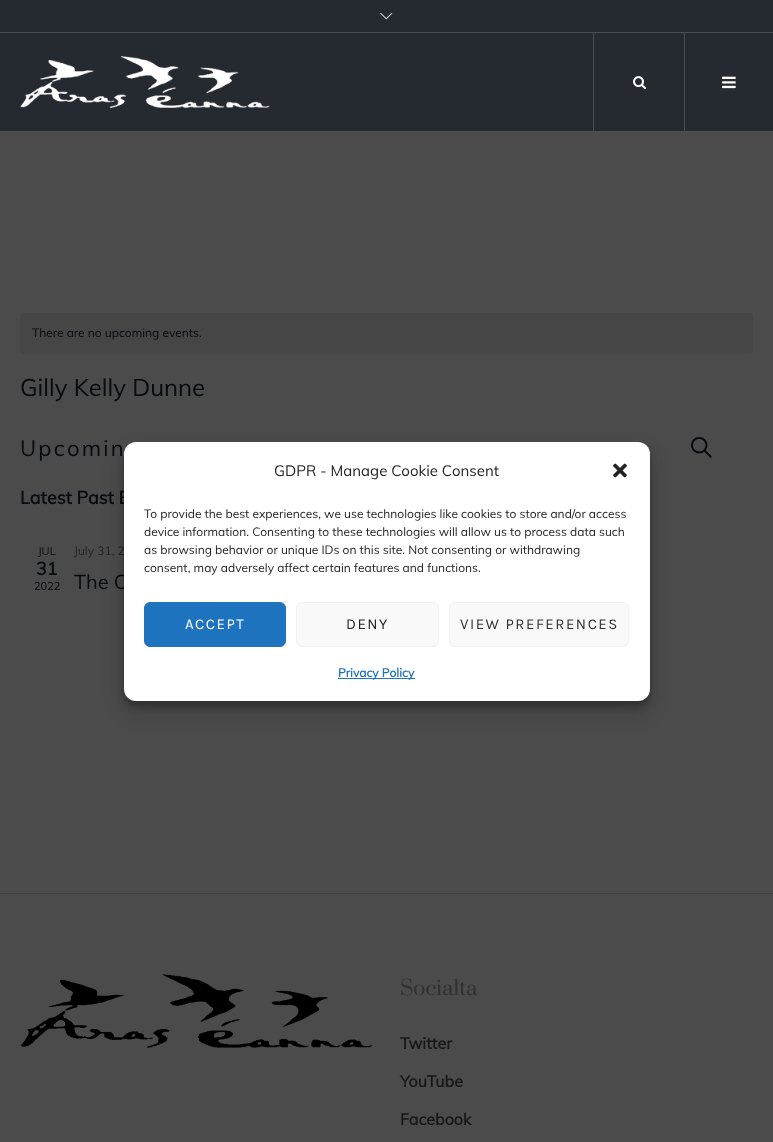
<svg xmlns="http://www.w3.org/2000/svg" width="773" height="1142">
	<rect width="100%" height="100%" fill="#4B4B4B" />
	<rect x="0" y="0" width="773" height="32" fill="#252930" />
	<rect x="0" y="32" width="773" height="1" fill="#4A4D53" />
	<image x="380" y="12" width="13" height="8" href="assets/img1.png" />
	<rect x="0" y="33" width="773" height="98" fill="#252930" />
	<rect x="0" y="131" width="773" height="2" fill="#4A4D53" />
	<image x="20" y="56" width="250" height="52" href="assets/img2.png" />
	<rect x="593" y="33" width="1" height="98" fill="#4A4D53" />
	<image x="633" y="76" width="13" height="14" href="assets/img3.png" />
	<rect x="684" y="33" width="1" height="98" fill="#4A4D53" />
	<image x="722" y="76" width="14" height="13" href="assets/img4.png" />
	<rect x="20" y="313" width="733" height="41" rx="4" fill="#464647" />
	<text x="32" y="337" font-family="Muli" font-size="12" fill="#070A0E">There are no upcoming events.</text>
	<text x="20" y="396" font-family="Muli" font-size="24" fill="#070A0E">Gilly Kelly Dunne</text>
	<text x="20" y="456" font-family="Muli" font-size="22" letter-spacing="2.25" fill="#070A0E">Upcomin</text>
	<image x="691" y="437" width="21" height="21" href="assets/img5.png" />
	<text x="20" y="504" font-family="Muli" font-size="18" font-weight="700" fill="#070A0E">Latest Past E</text>
	<text x="38" y="555" font-family="Muli" font-size="11" fill="#070A0E">JUL</text>
	<text x="36" y="575" font-family="Muli" font-size="18" font-weight="700" fill="#070A0E">31</text>
	<text x="34" y="590" font-family="Muli" font-size="11" fill="#070A0E">2022</text>
	<text x="74" y="555" font-family="Muli" font-size="12" fill="#242424">July 31, 2</text>
	<text x="74" y="589" font-family="Muli" font-size="20" fill="#070A0E">The C</text>
	<rect x="0" y="893" width="773" height="1" fill="#414142" />
	<image x="20" y="974" width="353" height="74" href="assets/img6.png" />
	<text x="400" y="995" font-family="Prata" font-size="20" fill="#303133">Socialta</text>
	<g font-family="Muli" font-size="16" font-weight="700" fill="#171717">
		<text x="400" y="1049">Twitter</text>
		<text x="400" y="1087">YouTube</text>
		<text x="400" y="1125">Facebook</text>
	</g>
	<rect x="124" y="448" width="526" height="259" rx="12" fill="#000000" fill-opacity="0.23" filter="blur(3px)" />
	<rect x="124" y="452" width="526" height="259" rx="12" fill="#000000" fill-opacity="0.19" filter="blur(10px)" />
	<rect x="124" y="442" width="526" height="259" rx="12" fill="#FFFFFF" />
	<text x="274" y="476" font-family="Muli" font-size="15" fill="#242424">GDPR - Manage Cookie Consent</text>
	<image x="613" y="463" width="14" height="15" href="assets/img7.png" />
	<g font-family="Muli" font-size="12" fill="#242424">
		<text x="144" y="518">To provide the best experiences, we use technologies like cookies to store and/or access</text>
		<text x="144" y="536">device information. Consenting to these technologies will allow us to process data such</text>
		<text x="144" y="554">as browsing behavior or unique IDs on this site. Not consenting or withdrawing</text>
		<text x="144" y="572">consent, may adversely affect certain features and functions.</text>
	</g>
	<rect x="144.5" y="602.5" width="141" height="44" rx="5.5" fill="#1E73BE" stroke="#1E73BE" />
	<text x="185" y="629" font-family="Karla" font-size="15" letter-spacing="1.5" fill="#FFFFFF">ACCEPT</text>
	<rect x="296.5" y="602.5" width="142" height="44" rx="5.5" fill="#F9F9F9" stroke="#F2F2F2" />
	<text x="346" y="629" font-family="Karla" font-size="15" letter-spacing="1.5" fill="#242424">DENY</text>
	<rect x="449.5" y="602.5" width="179" height="44" rx="5.5" fill="#F9F9F9" stroke="#F2F2F2" />
	<text x="460" y="629" font-family="Karla" font-size="15" letter-spacing="1.5" fill="#303133">VIEW PREFERENCES</text>
	<rect x="338" y="678" width="77" height="1" fill="#1E73BE" />
	<text x="338" y="677" font-family="Muli" font-size="12" font-weight="700" fill="#1E73BE">Privacy Policy</text>
</svg>
